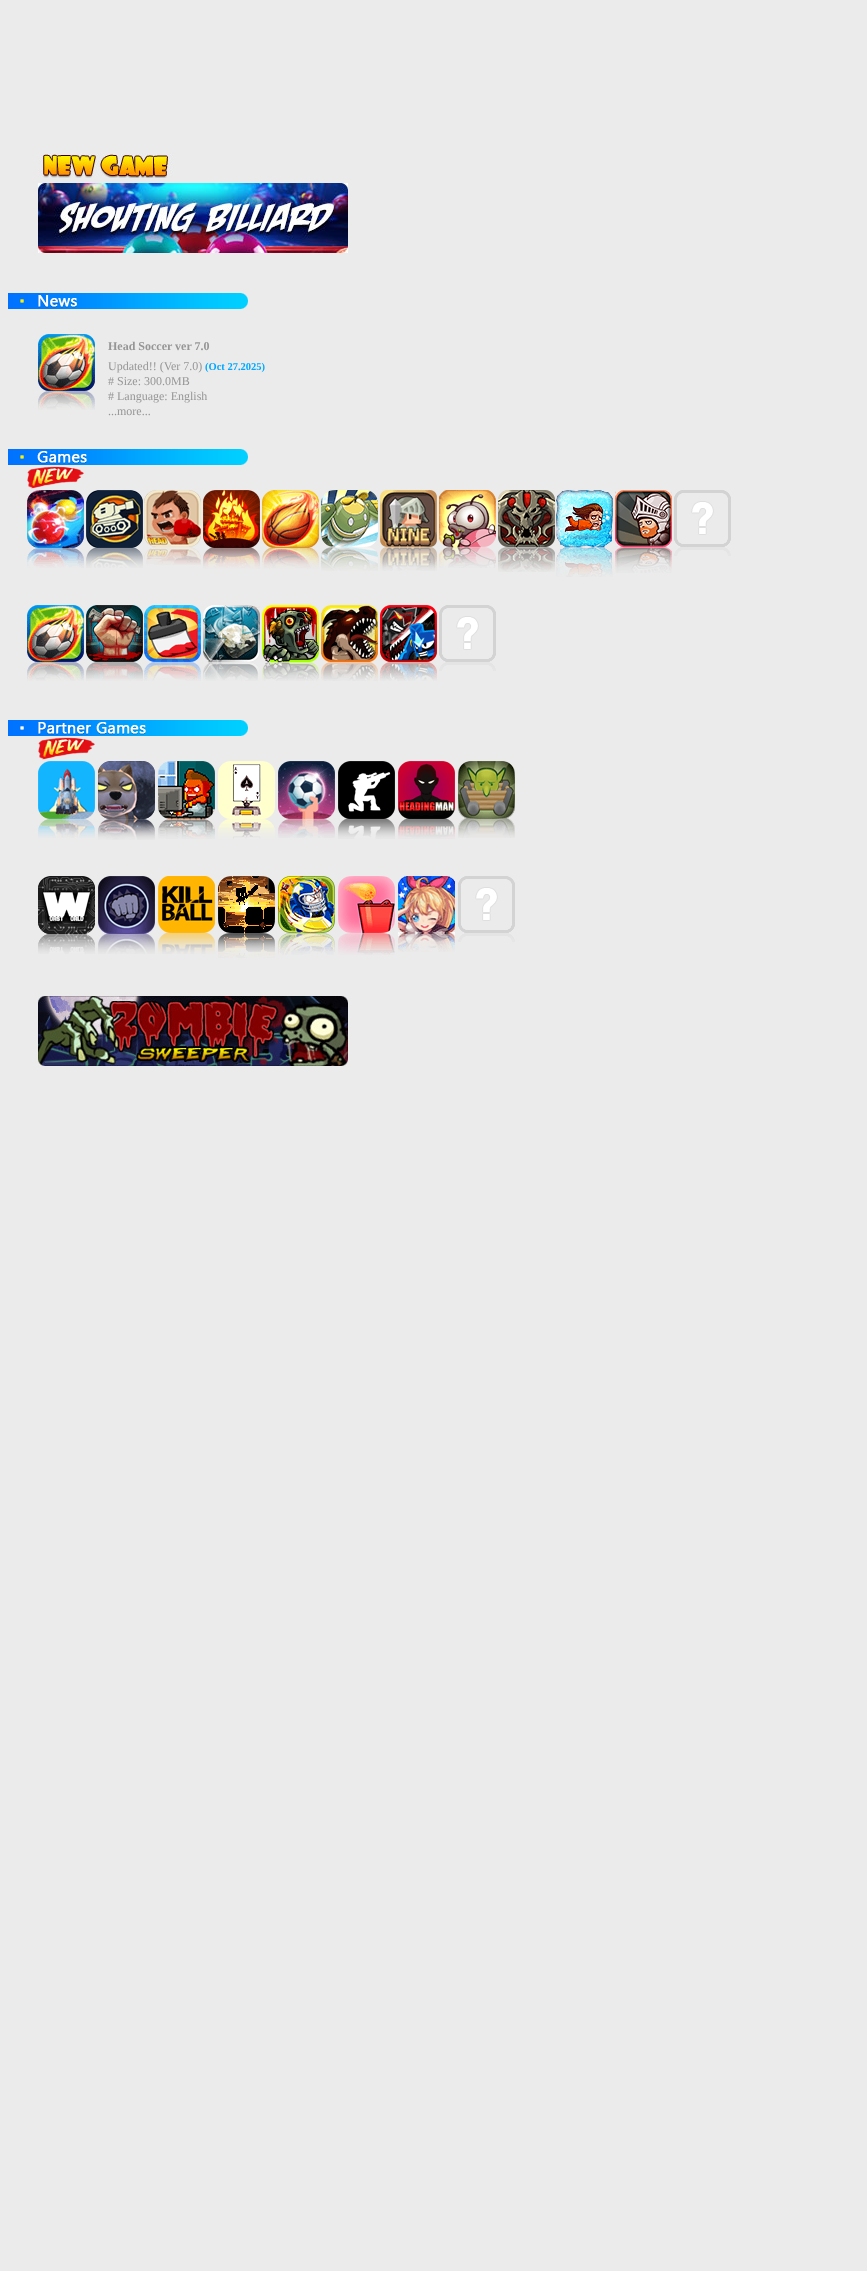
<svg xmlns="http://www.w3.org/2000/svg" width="867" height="2271">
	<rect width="100%" height="100%" fill="#EBEBEB" />
	<image x="38" y="153" width="136" height="25" href="assets/img1.png" />
	<image x="38" y="183" width="310" height="70" href="assets/img2.png" />
	<image x="8" y="293" width="240" height="16" href="assets/img3.png" />
	<image x="38" y="334" width="57" height="76" href="assets/img4.png" />
	<text x="108" y="350" font-family="Liberation Serif" font-size="12" font-weight="700" fill="#969696">Head Soccer ver 7.0</text>
	<text x="108" y="370" font-family="Liberation Serif" font-size="12" fill="#969696">Updated!! (Ver 7.0)</text>
	<text x="205" y="370" font-family="Liberation Serif" font-size="10.5" font-weight="700" fill="#00A8FF">(Oct 27.2025)</text>
	<g font-family="Liberation Serif" font-size="12" fill="#969696">
		<text x="108" y="385"># Size: 300.0MB</text>
		<text x="108" y="400"># Language: English</text>
		<text x="108" y="415">...more...</text>
	</g>
	<image x="8" y="449" width="240" height="16" href="assets/img5.png" />
	<image x="27" y="466" width="57" height="23" href="assets/img6.png" />
	<image x="27" y="490" width="57" height="78" href="assets/img7.png" />
	<image x="86" y="490" width="57" height="78" href="assets/img8.png" />
	<image x="144" y="490" width="57" height="75" href="assets/img9.png" />
	<image x="203" y="490" width="57" height="79" href="assets/img10.png" />
	<image x="262" y="490" width="57" height="79" href="assets/img11.png" />
	<image x="321" y="490" width="57" height="81" href="assets/img12.png" />
	<image x="380" y="490" width="57" height="81" href="assets/img13.png" />
	<image x="439" y="490" width="57" height="78" href="assets/img14.png" />
	<image x="498" y="490" width="57" height="82" href="assets/img15.png" />
	<image x="556" y="490" width="57" height="87" href="assets/img16.png" />
	<image x="615" y="490" width="57" height="83" href="assets/img17.png" />
	<image x="674" y="490" width="57" height="66" href="assets/img18.png" />
	<image x="27" y="605" width="57" height="76" href="assets/img4.png" />
	<image x="86" y="605" width="57" height="76" href="assets/img19.png" />
	<image x="144" y="605" width="57" height="76" href="assets/img20.png" />
	<image x="203" y="605" width="57" height="76" href="assets/img21.png" />
	<image x="262" y="605" width="57" height="76" href="assets/img22.png" />
	<image x="321" y="605" width="57" height="76" href="assets/img23.png" />
	<image x="380" y="605" width="57" height="76" href="assets/img24.png" />
	<image x="439" y="605" width="57" height="66" href="assets/img18.png" />
	<image x="8" y="720" width="240" height="16" href="assets/img25.png" />
	<image x="38" y="737" width="57" height="23" href="assets/img6.png" />
	<image x="38" y="761" width="57" height="77" href="assets/img26.png" />
	<image x="98" y="761" width="57" height="79" href="assets/img27.png" />
	<image x="158" y="761" width="57" height="78" href="assets/img28.png" />
	<image x="218" y="761" width="57" height="78" href="assets/img29.png" />
	<image x="278" y="761" width="57" height="77" href="assets/img30.png" />
	<image x="338" y="761" width="57" height="78" href="assets/img31.png" />
	<image x="398" y="761" width="57" height="78" href="assets/img32.png" />
	<image x="458" y="761" width="57" height="77" href="assets/img33.png" />
	<image x="38" y="876" width="57" height="78" href="assets/img34.png" />
	<image x="98" y="876" width="57" height="78" href="assets/img35.png" />
	<image x="158" y="876" width="57" height="78" href="assets/img36.png" />
	<image x="218" y="876" width="57" height="82" href="assets/img37.png" />
	<image x="278" y="876" width="57" height="81" href="assets/img38.png" />
	<image x="338" y="876" width="57" height="79" href="assets/img39.png" />
	<image x="398" y="876" width="57" height="76" href="assets/img40.png" />
	<image x="458" y="876" width="57" height="66" href="assets/img18.png" />
	<image x="38" y="996" width="310" height="70" href="assets/img41.png" />
</svg>
